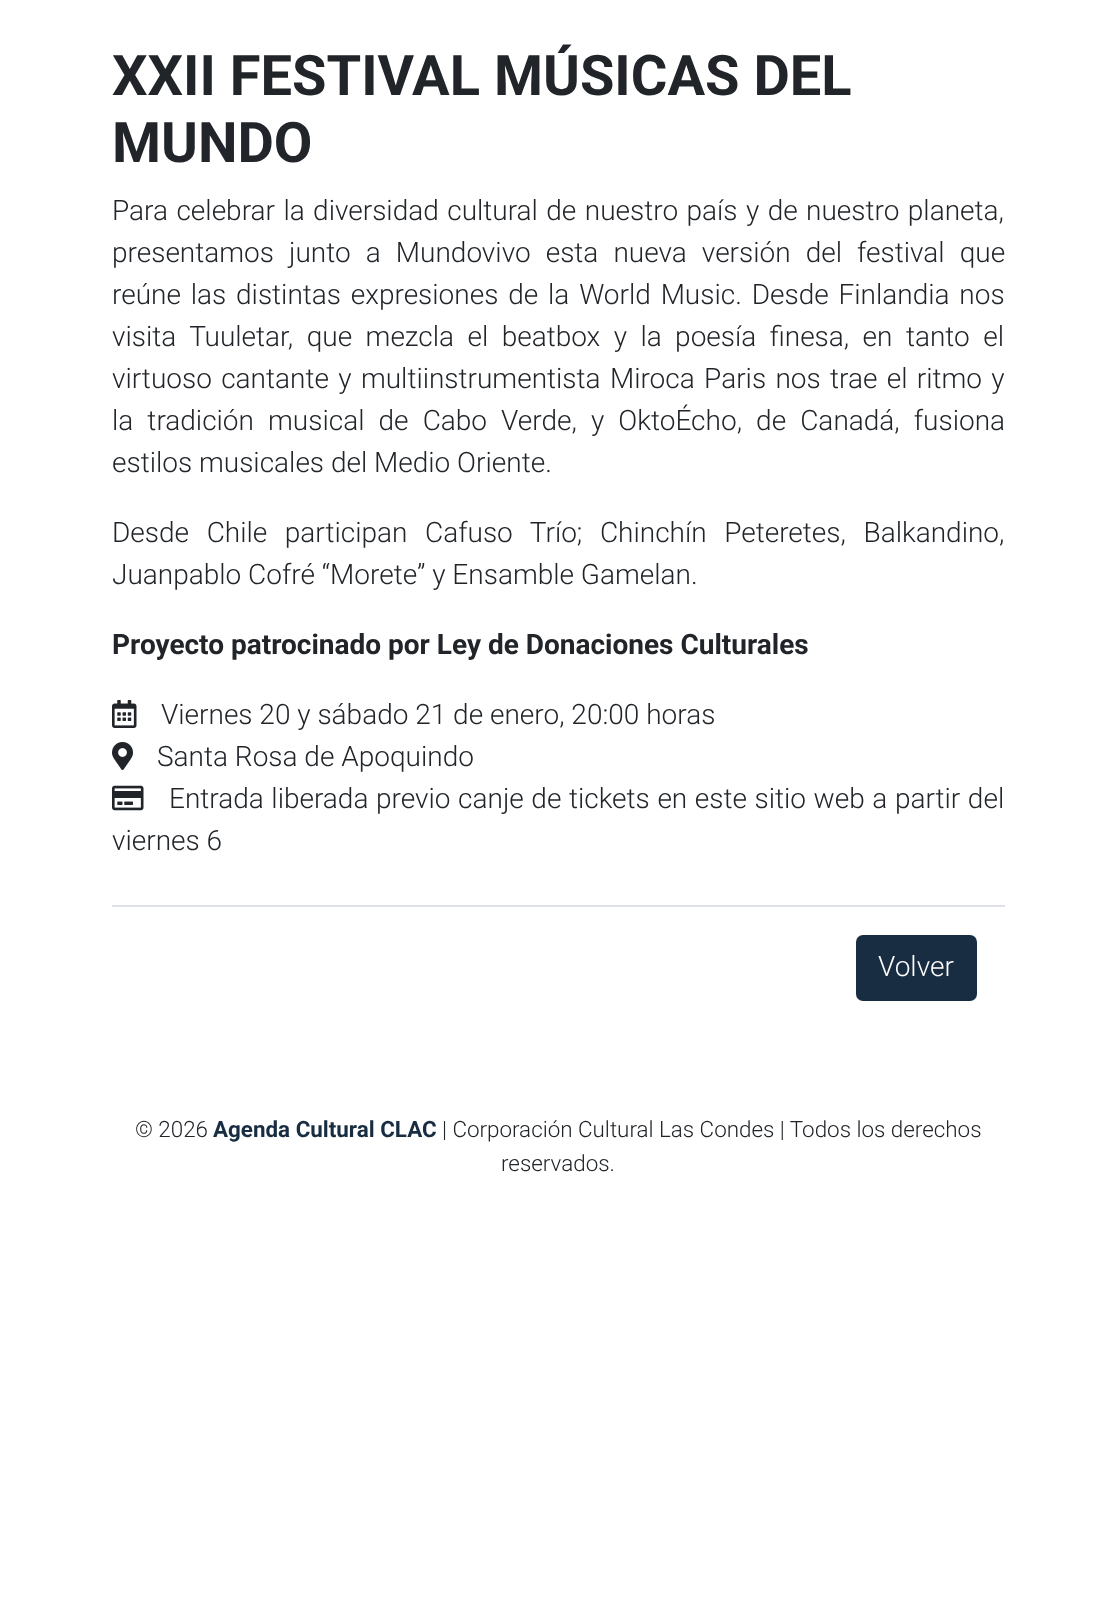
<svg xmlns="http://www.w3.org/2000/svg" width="1115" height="1614">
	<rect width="100%" height="100%" fill="#FFFFFF" />
	<g font-family="Roboto" font-size="56" font-weight="700" fill="#212529">
		<text x="112" y="95">XXII FESTIVAL MÚSICAS DEL</text>
		<text x="112" y="162">MUNDO</text>
	</g>
	<g font-family="Roboto" font-size="28" font-weight="300" fill="#212529">
		<text x="112" y="220" word-spacing="1.6">Para celebrar la diversidad cultural de nuestro país y de nuestro planeta,</text>
		<text x="112" y="262" word-spacing="8.25">presentamos junto a Mundovivo esta nueva versión del festival que</text>
		<text x="112" y="304" word-spacing="3">reúne las distintas expresiones de la World Music. Desde Finlandia nos</text>
		<text x="112" y="346" word-spacing="6.6">visita Tuuletar, que mezcla el beatbox y la poesía finesa, en tanto el</text>
		<text x="112" y="388" word-spacing="2.5">virtuoso cantante y multiinstrumentista Miroca Paris nos trae el ritmo y</text>
		<text x="112" y="430" word-spacing="7.25">la tradición musical de Cabo Verde, y OktoÉcho, de Canadá, fusiona</text>
		<text x="112" y="472">estilos musicales del Medio Oriente.</text>
		<text x="112" y="542" word-spacing="10.75">Desde Chile participan Cafuso Trío; Chinchín Peteretes, Balkandino,</text>
		<text x="112" y="584">Juanpablo Cofré “Morete” y Ensamble Gamelan.</text>
	</g>
	<text x="112" y="654" font-family="Roboto" font-size="28" font-weight="700" fill="#212529">Proyecto patrocinado por Ley de Donaciones Culturales</text>
	<image x="112" y="700" width="25" height="28" href="assets/img1.png" />
	<text x="161" y="724" font-family="Roboto" font-size="28" font-weight="300" fill="#212529">Viernes 20 y sábado 21 de enero, 20:00 horas</text>
	<image x="112" y="742" width="21" height="28" href="assets/img2.png" />
	<text x="157" y="766" font-family="Roboto" font-size="28" font-weight="300" fill="#212529">Santa Rosa de Apoquindo</text>
	<image x="112" y="785" width="32" height="26" href="assets/img3.png" />
	<g font-family="Roboto" font-size="28" font-weight="300" fill="#212529">
		<text x="169" y="808" word-spacing="0.75">Entrada liberada previo canje de tickets en este sitio web a partir del</text>
		<text x="112" y="850">viernes 6</text>
	</g>
	<rect x="112" y="905" width="893" height="2" fill="#DEE2E6" />
	<rect x="857" y="936" width="119" height="64" rx="6" fill="#182D42" stroke="#182D42" stroke-width="2" />
	<text x="878" y="976" font-family="Roboto" font-size="28" font-weight="300" fill="#FFFFFF">Volver</text>
	<text x="135" y="1137" font-family="Roboto" font-size="22.4" font-weight="300" fill="#212529">© 2026</text>
	<text x="213" y="1137" font-family="Roboto" font-size="22.4" font-weight="700" fill="#182D42">Agenda Cultural CLAC</text>
	<g font-family="Roboto" font-size="22.4" font-weight="300" fill="#212529">
		<text x="442" y="1137">| Corporación Cultural Las Condes | Todos los derechos</text>
		<text x="501" y="1171">reservados.</text>
	</g>
</svg>
